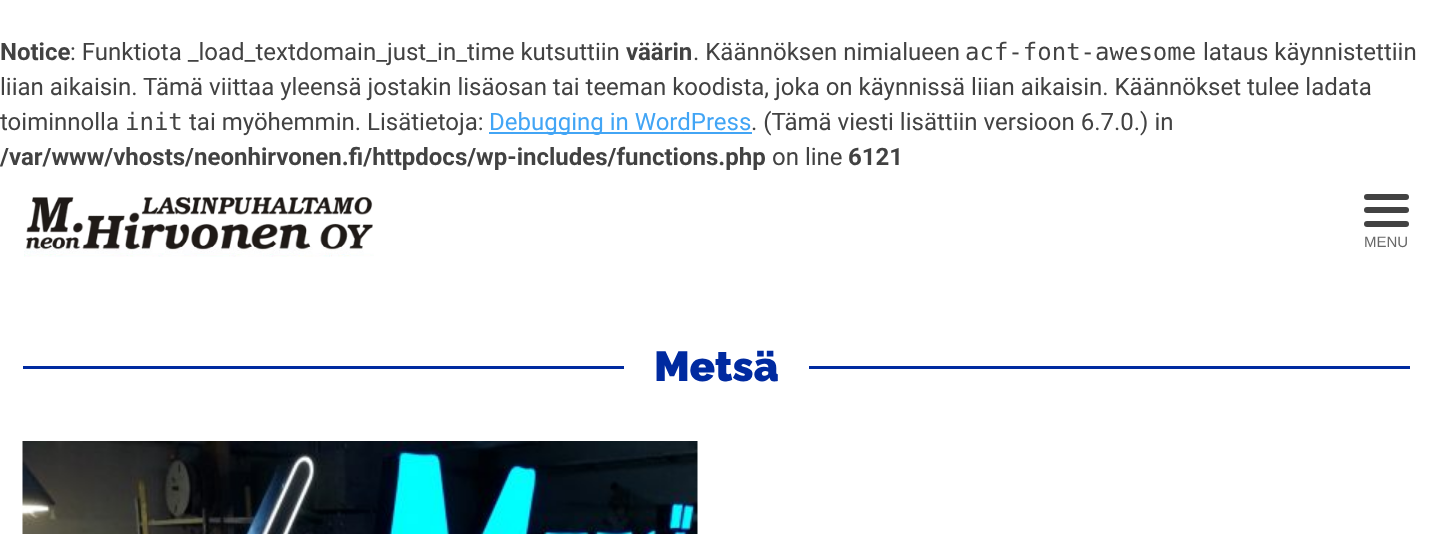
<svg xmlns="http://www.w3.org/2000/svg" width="1432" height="534">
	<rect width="100%" height="100%" fill="#FFFFFF" />
	<text x="0" y="60" font-family="Roboto" font-size="24" font-weight="700" fill="#424242">Notice</text>
	<text x="70" y="60" font-family="Roboto" font-size="24" fill="#424242">: Funktiota _load_textdomain_just_in_time kutsuttiin</text>
	<text x="626" y="60" font-family="Roboto" font-size="24" font-weight="700" fill="#424242">väärin</text>
	<text x="693" y="60" font-family="Roboto" font-size="24" fill="#424242">. Käännöksen nimialueen</text>
	<text x="965" y="60" font-family="DejaVu Sans Mono" font-size="24" fill="#424242">acf-font-awesome</text>
	<g font-family="Roboto" font-size="24" fill="#424242">
		<text x="1203" y="60">lataus käynnistettiin</text>
		<text x="0" y="95">liian aikaisin. Tämä viittaa yleensä jostakin lisäosan tai teeman koodista, joka on käynnissä liian aikaisin. Käännökset tulee ladata</text>
		<text x="0" y="130">toiminnolla</text>
	</g>
	<text x="125" y="130" font-family="DejaVu Sans Mono" font-size="24" fill="#424242">init</text>
	<text x="189" y="130" font-family="Roboto" font-size="24" fill="#424242">tai myöhemmin. Lisätietoja:</text>
	<rect x="489" y="132" width="263" height="2" fill="#42A5F5" />
	<text x="489" y="130" font-family="Roboto" font-size="24" fill="#42A5F5">Debugging in WordPress</text>
	<text x="751" y="130" font-family="Roboto" font-size="24" fill="#424242">. (Tämä viesti lisättiin versioon 6.7.0.) in</text>
	<text x="0" y="165" font-family="Roboto" font-size="24" font-weight="700" fill="#424242">/var/www/vhosts/neonhirvonen.fi/httpdocs/wp-includes/functions.php</text>
	<text x="772" y="165" font-family="Roboto" font-size="24" fill="#424242">on line</text>
	<text x="848" y="165" font-family="Roboto" font-size="24" font-weight="700" fill="#424242">6121</text>
	<image x="24" y="197" width="350" height="60" href="assets/img1.png" />
	<rect x="1364" y="194" width="45" height="6" rx="3" fill="#424242" />
	<rect x="1364" y="207" width="45" height="6" rx="3" fill="#424242" />
	<rect x="1364" y="221" width="45" height="6" rx="3" fill="#424242" />
	<text x="1364" y="247" font-family="Liberation Sans" font-size="15" fill="#686868">MENU</text>
	<rect x="23" y="366" width="601" height="3" fill="#002AA0" />
	<text x="654" y="381" font-family="Raleway" font-size="42" font-weight="900" fill="#002AA0">Metsä</text>
	<rect x="809" y="366" width="601" height="3" fill="#002AA0" />
	<image x="22" y="441" width="676" height="93" href="assets/img2.png" />
</svg>
